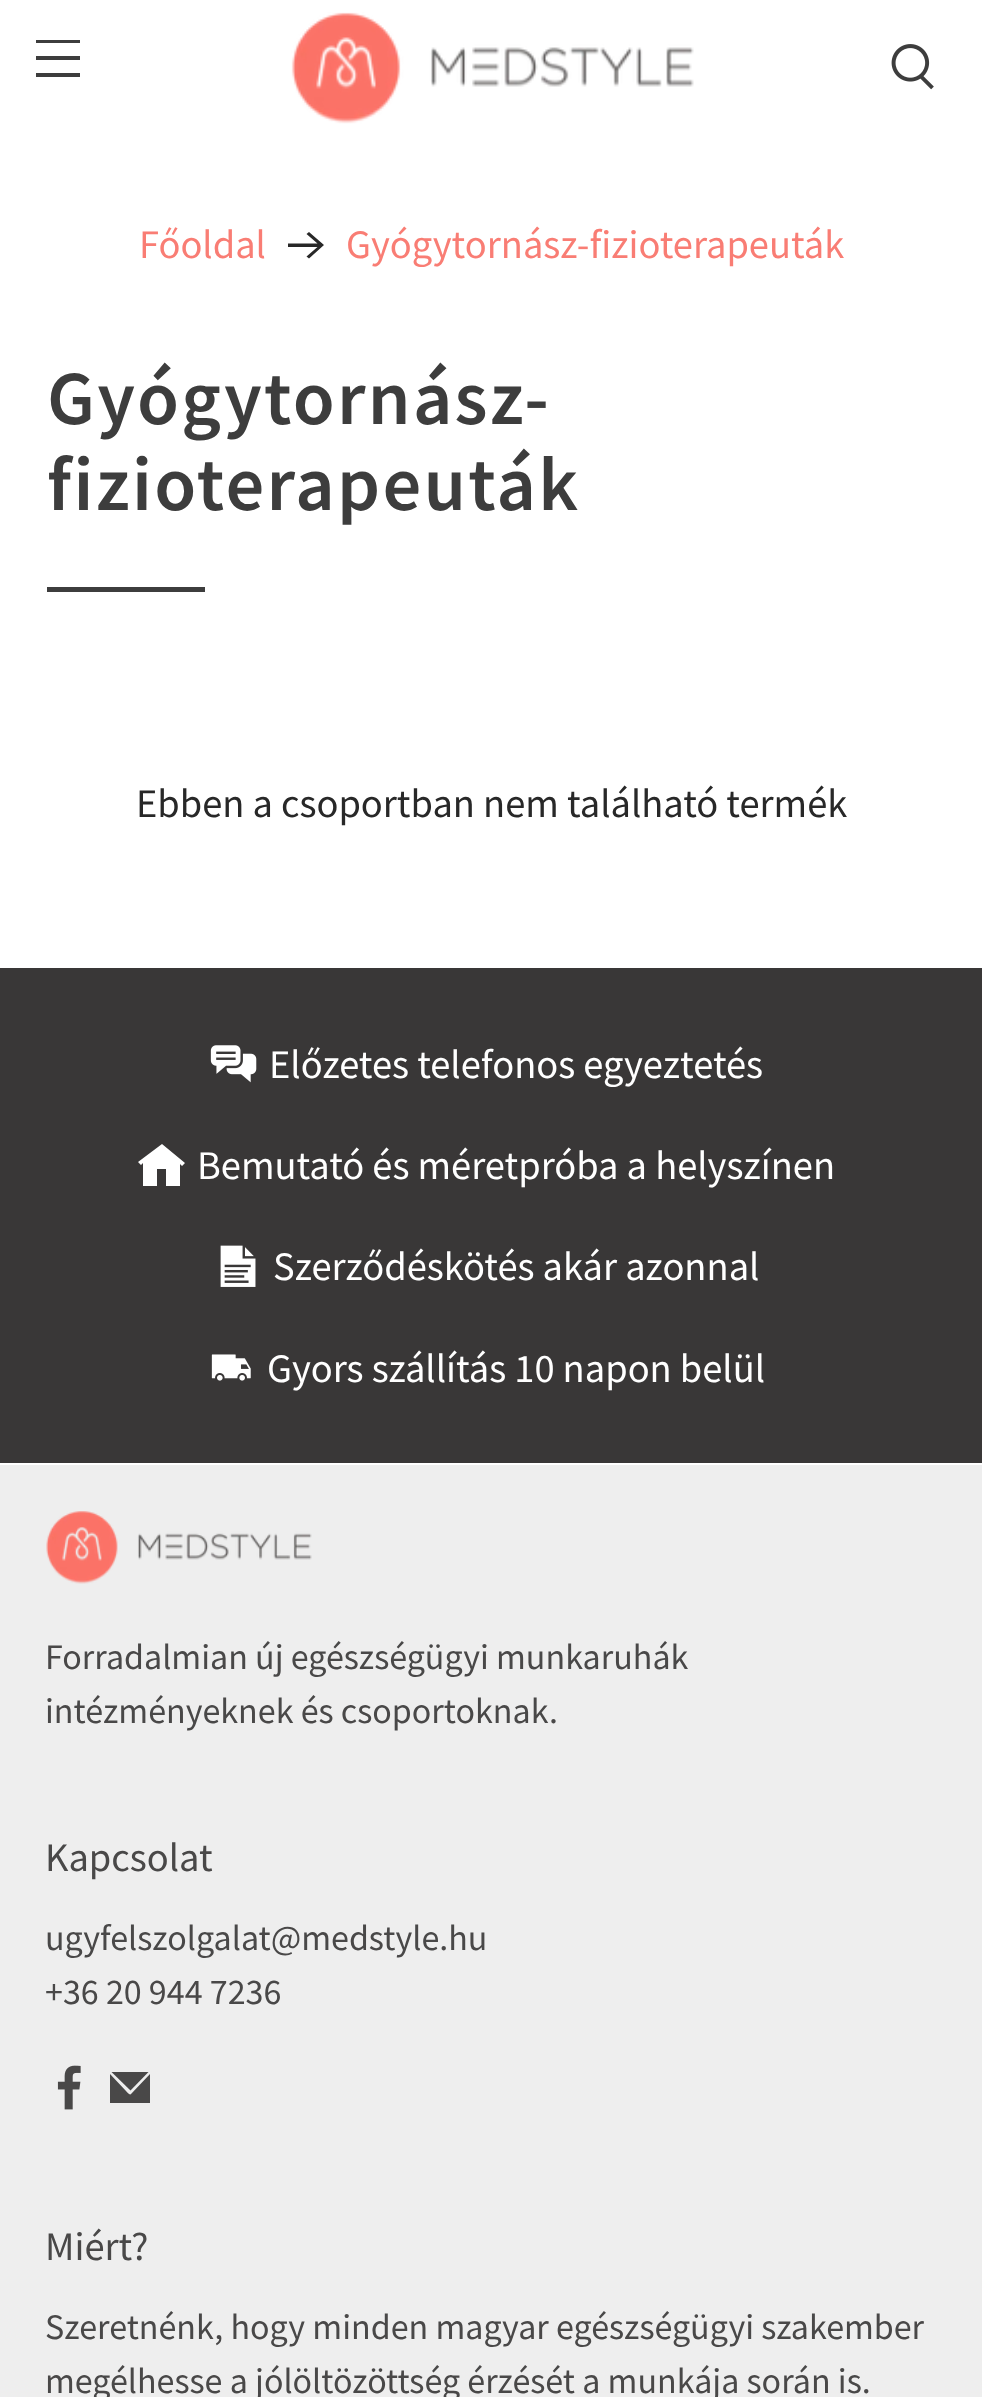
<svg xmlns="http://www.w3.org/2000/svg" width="982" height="2397">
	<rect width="100%" height="100%" fill="#FFFFFF" />
	<rect x="36" y="40" width="44" height="3" fill="#3D3D3D" />
	<rect x="36" y="56" width="44" height="4" fill="#3D3D3D" />
	<rect x="36" y="73" width="44" height="4" fill="#3D3D3D" />
	<image x="291" y="12" width="403" height="112" href="assets/img1.png" />
	<image x="891" y="44" width="43" height="46" href="assets/img2.png" />
	<text x="139" y="258" font-family="Source Sans Pro" font-size="40.5" fill="#F97D74">Főoldal</text>
	<path d="M309 232L306.5 234L317.5 243.5H288V247H317.5L306.5 256.5L309 258.5L324 245Z" fill="#282828" />
	<text x="346" y="258" font-family="Source Sans Pro" font-size="40.5" fill="#F97D74">Gyógytornász-fizioterapeuták</text>
	<g font-family="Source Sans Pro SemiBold" font-size="76.5" font-weight="600" letter-spacing="2.25" fill="#3D3D3D">
		<text x="47" y="424">Gyógytornász-</text>
		<text x="47" y="510">fizioterapeuták</text>
	</g>
	<rect x="47" y="587" width="158" height="5" fill="#3D3D3D" />
	<text x="136" y="817" font-family="Source Sans Pro" font-size="40.5" fill="#282828">Ebben a csoportban nem található termék</text>
	<rect x="0" y="968" width="982" height="495" fill="#393737" />
	<image x="210" y="1045" width="47" height="38" href="assets/img3.png" />
	<text x="269" y="1078" font-family="Source Sans Pro" font-size="40.5" fill="#FFFFFF">Előzetes telefonos egyeztetés</text>
	<path d="M185 1163L162 1144L138 1162L141 1165L143 1163V1186H157V1169H166V1186H180V1164L182 1166Z" fill="#FFFFFF" />
	<text x="197" y="1179" font-family="Source Sans Pro" font-size="40.5" fill="#FFFFFF">Bemutató és méretpróba a helyszínen</text>
	<image x="220" y="1245" width="36" height="42" href="assets/img4.png" />
	<text x="273" y="1280" font-family="Source Sans Pro" font-size="40.5" fill="#FFFFFF">Szerződéskötés akár azonnal</text>
	<image x="211" y="1354" width="40" height="27" href="assets/img5.png" />
	<text x="267" y="1382" font-family="Source Sans Pro" font-size="40.5" fill="#FFFFFF">Gyors szállítás 10 napon belül</text>
	<rect x="0" y="1465" width="982" height="932" fill="#EEEEEE" />
	<image x="46" y="1511" width="266" height="73" href="assets/img6.png" />
	<g font-family="Source Sans Pro" font-size="36" fill="#494848">
		<text x="45" y="1669">Forradalmian új egészségügyi munkaruhák</text>
		<text x="45" y="1723">intézményeknek és csoportoknak.</text>
	</g>
	<text x="45" y="1871" font-family="Source Sans Pro" font-size="40.5" fill="#494848">Kapcsolat</text>
	<g font-family="Source Sans Pro" font-size="36" fill="#494848">
		<text x="45" y="1950">ugyfelszolgalat@medstyle.hu</text>
		<text x="45" y="2004">+36 20 944 7236</text>
	</g>
	<image x="57" y="2065" width="24" height="45" href="assets/img7.png" />
	<path d="M131 2094C130 2096 126 2091 126 2091L110 2074V2103H150V2074Z" fill="#494848" />
	<path d="M148.5 2072H111.5L130.5 2090.5Z" fill="#494848" />
	<text x="45" y="2260" font-family="Source Sans Pro" font-size="40.5" fill="#494848">Miért?</text>
	<g font-family="Source Sans Pro" font-size="36" fill="#494848">
		<text x="45" y="2339">Szeretnénk, hogy minden magyar egészségügyi szakember</text>
		<text x="45" y="2393">megélhesse a jólöltözöttség érzését a munkája során is.</text>
	</g>
</svg>
